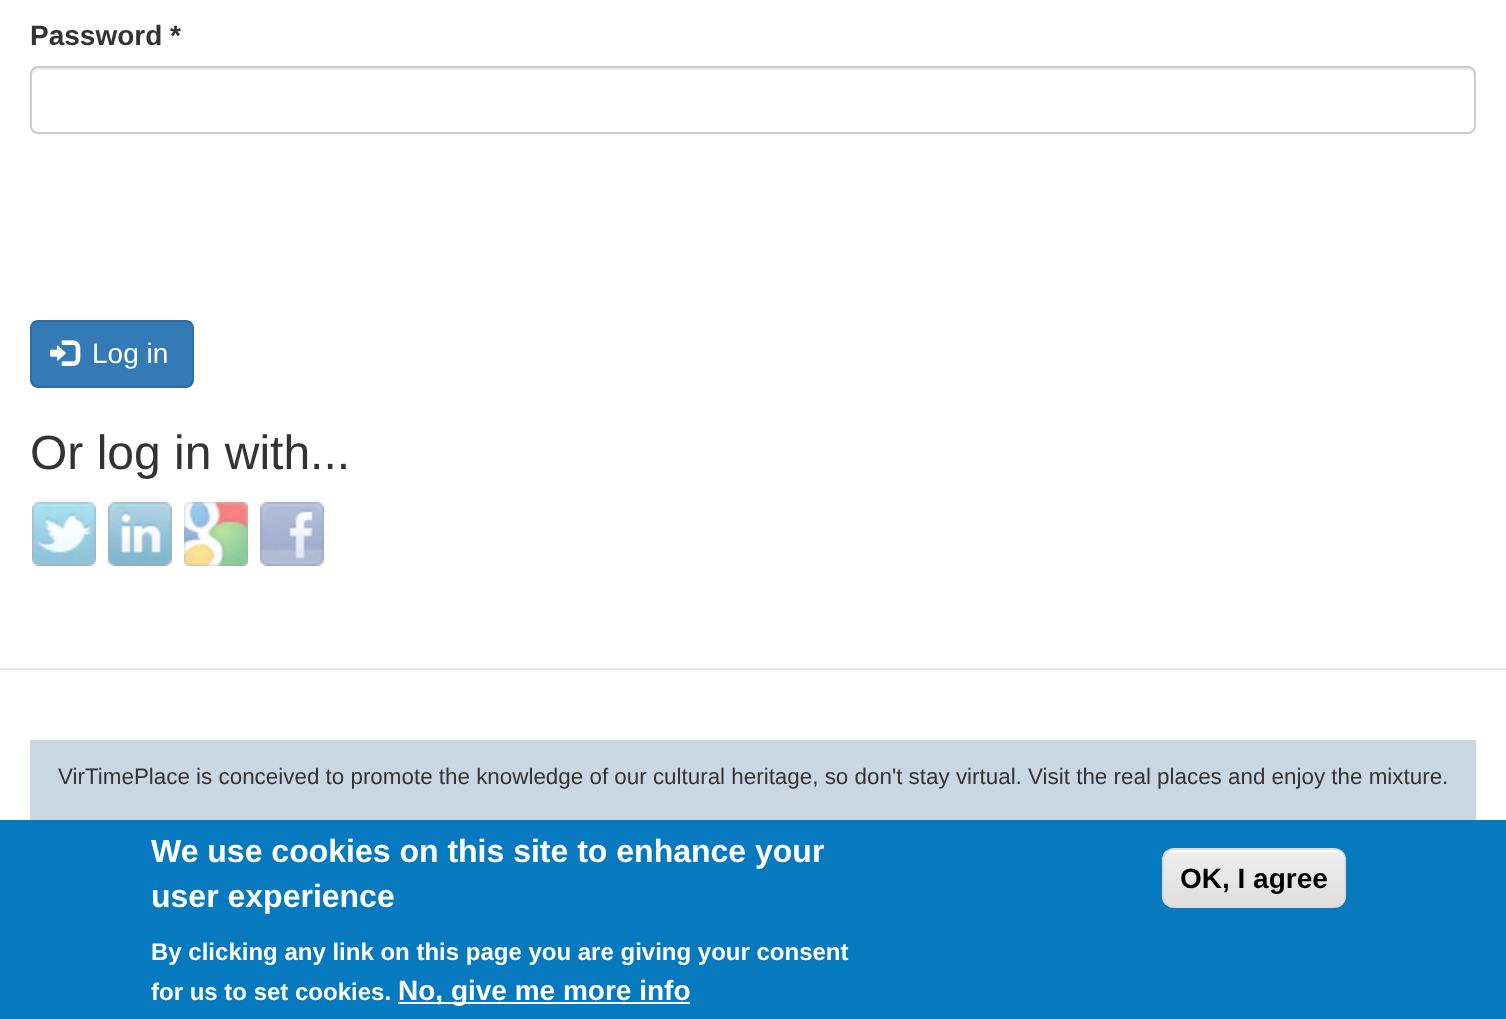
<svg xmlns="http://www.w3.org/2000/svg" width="1506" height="1019">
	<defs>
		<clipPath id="clip1"><rect x="1162" y="848" width="184" height="60" rx="12" /></clipPath>
		<linearGradient id="g1" gradientUnits="userSpaceOnUse" x1="1254" y1="850" x2="1254" y2="906"><stop offset="0.05" stop-color="#EDEDED" /><stop offset="1" stop-color="#DFDFDF" /></linearGradient>
	</defs>
	<rect width="100%" height="100%" fill="#FFFFFF" />
	<text x="30" y="45" font-family="Liberation Sans" font-size="28" font-weight="700" fill="#333333">Password *</text>
	<path d="M38 70H1468C1471 70 1474 73 1474 76C1474 72 1473 68 1468 68H38C33 68 32 72 32 76C32 73 35 70 38 70Z" fill="#ECECEC" />
	<rect x="31" y="67" width="1444" height="66" rx="7" fill="none" stroke="#CCCCCC" stroke-width="2" />
	<rect x="31" y="321" width="162" height="66" rx="7" fill="#337AB7" stroke="#2E6DA4" stroke-width="2" />
	<image x="50" y="340" width="31" height="26" href="assets/img1.png" />
	<text x="92" y="363" font-family="Liberation Sans" font-size="28" fill="#FFFFFF">Log in</text>
	<text x="30" y="469" font-family="Liberation Sans" font-size="48" fill="#333333">Or log in with...</text>
	<image x="32" y="502" width="64" height="64" href="assets/img2.png" />
	<image x="108" y="502" width="64" height="64" href="assets/img3.png" />
	<image x="184" y="502" width="64" height="64" href="assets/img4.png" />
	<image x="260" y="502" width="64" height="64" href="assets/img5.png" />
	<rect x="0" y="668" width="1506" height="2" fill="#E5E5E5" />
	<rect x="30" y="740" width="1446" height="80" fill="#CAD6E2" />
	<text x="58" y="784" font-family="Liberation Sans" font-size="22.4" fill="#333333">VirTimePlace is conceived to promote the knowledge of our cultural heritage, so don't stay virtual. Visit the real places and enjoy the mixture.</text>
	<rect x="0" y="820" width="1506" height="199" fill="#0779BF" />
	<g font-family="Liberation Sans" font-size="32" font-weight="700" fill="#FFFFFF">
		<text x="151" y="862">We use cookies on this site to enhance your</text>
		<text x="151" y="907">user experience</text>
	</g>
	<g font-family="Liberation Sans" font-size="24" font-weight="700" fill="#FFFFFF">
		<text x="151" y="960">By clicking any link on this page you are giving your consent</text>
		<text x="151" y="1000">for us to set cookies.</text>
	</g>
	<rect x="398" y="1002" width="292" height="2" fill="#FFFFFF" />
	<text x="398" y="1000" font-family="Liberation Sans" font-size="28" font-weight="700" fill="#FFFFFF">No, give me more info</text>
	<g clip-path="url(#clip1)">
		<rect x="1162" y="850" width="184" height="56" fill="url(#g1)" />
	</g>
	<path d="M1174 852H1334C1340 852 1344 856 1344 862V860C1344 854 1340 850 1334 850H1174C1168 850 1164 854 1164 860V862C1164 856 1168 852 1174 852Z" fill="#FFFFFF" />
	<rect x="1163" y="849" width="182" height="58" rx="11" fill="none" stroke="#DCDCDC" stroke-width="2" />
	<text x="1180" y="888" font-family="Liberation Sans" font-size="28" font-weight="700" fill="#000000">OK, I agree</text>
</svg>
